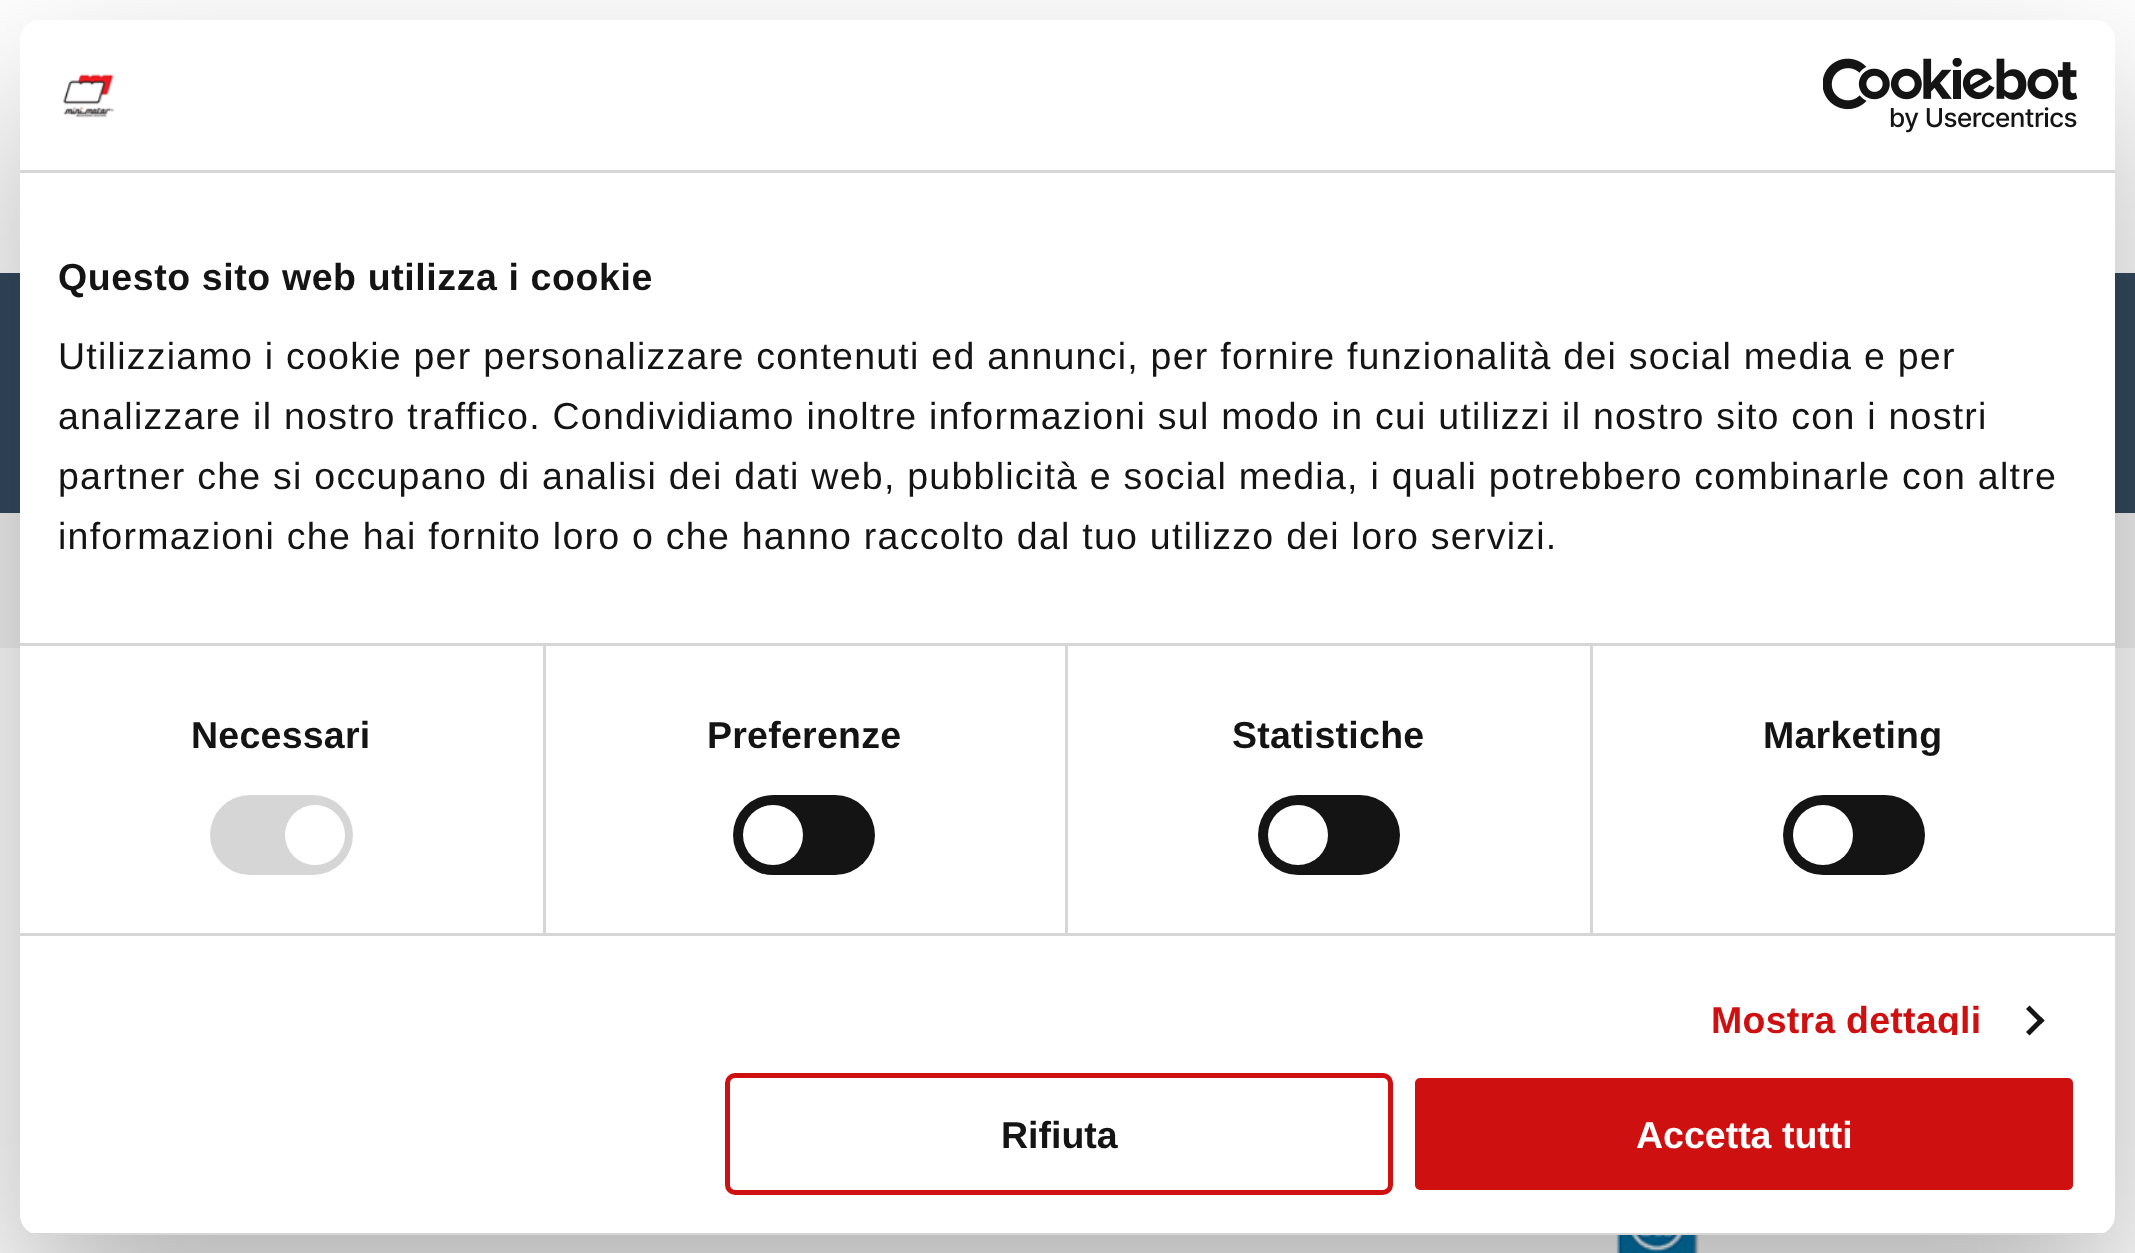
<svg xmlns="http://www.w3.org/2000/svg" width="2135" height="1253">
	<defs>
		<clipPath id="clip1"><rect x="20" y="173" width="2095" height="862" /></clipPath>
		<clipPath id="clip2"><rect x="20" y="20" width="2095" height="1215" rx="20" /></clipPath>
	</defs>
	<rect width="100%" height="100%" fill="#FFFFFF" />
	<rect x="0" y="273" width="2135" height="240" fill="#344A5F" />
	<rect x="0" y="513" width="2135" height="135" fill="#F3F3F3" />
	<image x="1616" y="1235" width="83" height="18" href="assets/img3.png" />
	<rect x="20" y="100" width="2095" height="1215" rx="20" fill="#000000" fill-opacity="0.3" filter="blur(85px)" />
	<rect x="20" y="20" width="2095" height="1215" rx="20" fill="#FFFFFF" />
	<rect x="20" y="170" width="2095" height="3" fill="#D6D6D6" />
	<image x="63" y="74" width="52" height="44" href="assets/img1.png" />
	<image x="1823" y="58" width="255" height="75" href="assets/img2.png" />
	<rect x="543" y="645" width="3" height="288" fill="#D6D6D6" />
	<rect x="1065" y="645" width="3" height="288" fill="#D6D6D6" />
	<rect x="1590" y="645" width="3" height="288" fill="#D6D6D6" />
	<rect x="20" y="643" width="2095" height="3" fill="#D6D6D6" />
	<text x="58" y="290" font-family="Liberation Sans" font-size="37.5" font-weight="700" letter-spacing="0.6" fill="#141414">Questo sito web utilizza i cookie</text>
	<g font-family="Liberation Sans" font-size="37.5" letter-spacing="1.25" fill="#141414">
		<text x="58" y="369">Utilizziamo i cookie per personalizzare contenuti ed annunci, per fornire funzionalità dei social media e per</text>
		<text x="58" y="429">analizzare il nostro traffico. Condividiamo inoltre informazioni sul modo in cui utilizzi il nostro sito con i nostri</text>
		<text x="58" y="489">partner che si occupano di analisi dei dati web, pubblicità e social media, i quali potrebbero combinarle con altre</text>
		<text x="58" y="549">informazioni che hai fornito loro o che hanno raccolto dal tuo utilizzo dei loro servizi.</text>
	</g>
	<rect x="20" y="933" width="2095" height="3" fill="#D6D6D6" />
	<text x="191" y="748" font-family="Liberation Sans" font-size="37.5" font-weight="700" letter-spacing="0.25" fill="#141414">Necessari</text>
	<rect x="210" y="795" width="143" height="80" rx="40" fill="#D6D6D6" />
	<circle cx="315" cy="835" r="30" fill="#FFFFFF" />
	<text x="707" y="748" font-family="Liberation Sans" font-size="37.5" font-weight="700" letter-spacing="0.25" fill="#141414">Preferenze</text>
	<rect x="733" y="795" width="142" height="80" rx="40" fill="#141414" />
	<circle cx="773" cy="835" r="30" fill="#FFFFFF" />
	<text x="1232" y="748" font-family="Liberation Sans" font-size="37.5" font-weight="700" letter-spacing="0.25" fill="#141414">Statistiche</text>
	<rect x="1258" y="795" width="142" height="80" rx="40" fill="#141414" />
	<circle cx="1298" cy="835" r="30" fill="#FFFFFF" />
	<text x="1763" y="748" font-family="Liberation Sans" font-size="37.5" font-weight="700" letter-spacing="0.25" fill="#141414">Marketing</text>
	<rect x="1783" y="795" width="142" height="80" rx="40" fill="#141414" />
	<circle cx="1823" cy="835" r="30" fill="#FFFFFF" />
	<g clip-path="url(#clip1)">
		<text x="1711" y="1033" font-family="Liberation Sans" font-size="37.5" font-weight="700" letter-spacing="0.25" fill="#CF1010">Mostra dettagli</text>
	</g>
	<path d="M2029.5 1005.5L2044.5 1020.5L2041 1024L2026 1009Z" fill="#141414" />
	<path d="M2041 1017L2044.5 1020.5L2029.5 1035.5L2026 1032Z" fill="#141414" />
	<g clip-path="url(#clip2)">
		<rect x="31" y="1233" width="2073" height="2" fill="#D6D6D6" />
	</g>
	<rect x="727.5" y="1075.5" width="663" height="117" rx="7.5" fill="none" stroke="#CF1010" stroke-width="5" />
	<text x="1001" y="1148" font-family="Liberation Sans" font-size="37.5" font-weight="700" fill="#141414">Rifiuta</text>
	<rect x="1412.5" y="1075.5" width="663" height="117" rx="7.5" fill="#CF1010" stroke="#FFFFFF" stroke-width="5" />
	<text x="1636" y="1148" font-family="Liberation Sans" font-size="37.5" font-weight="700" fill="#FFFFFF">Accetta tutti</text>
</svg>
